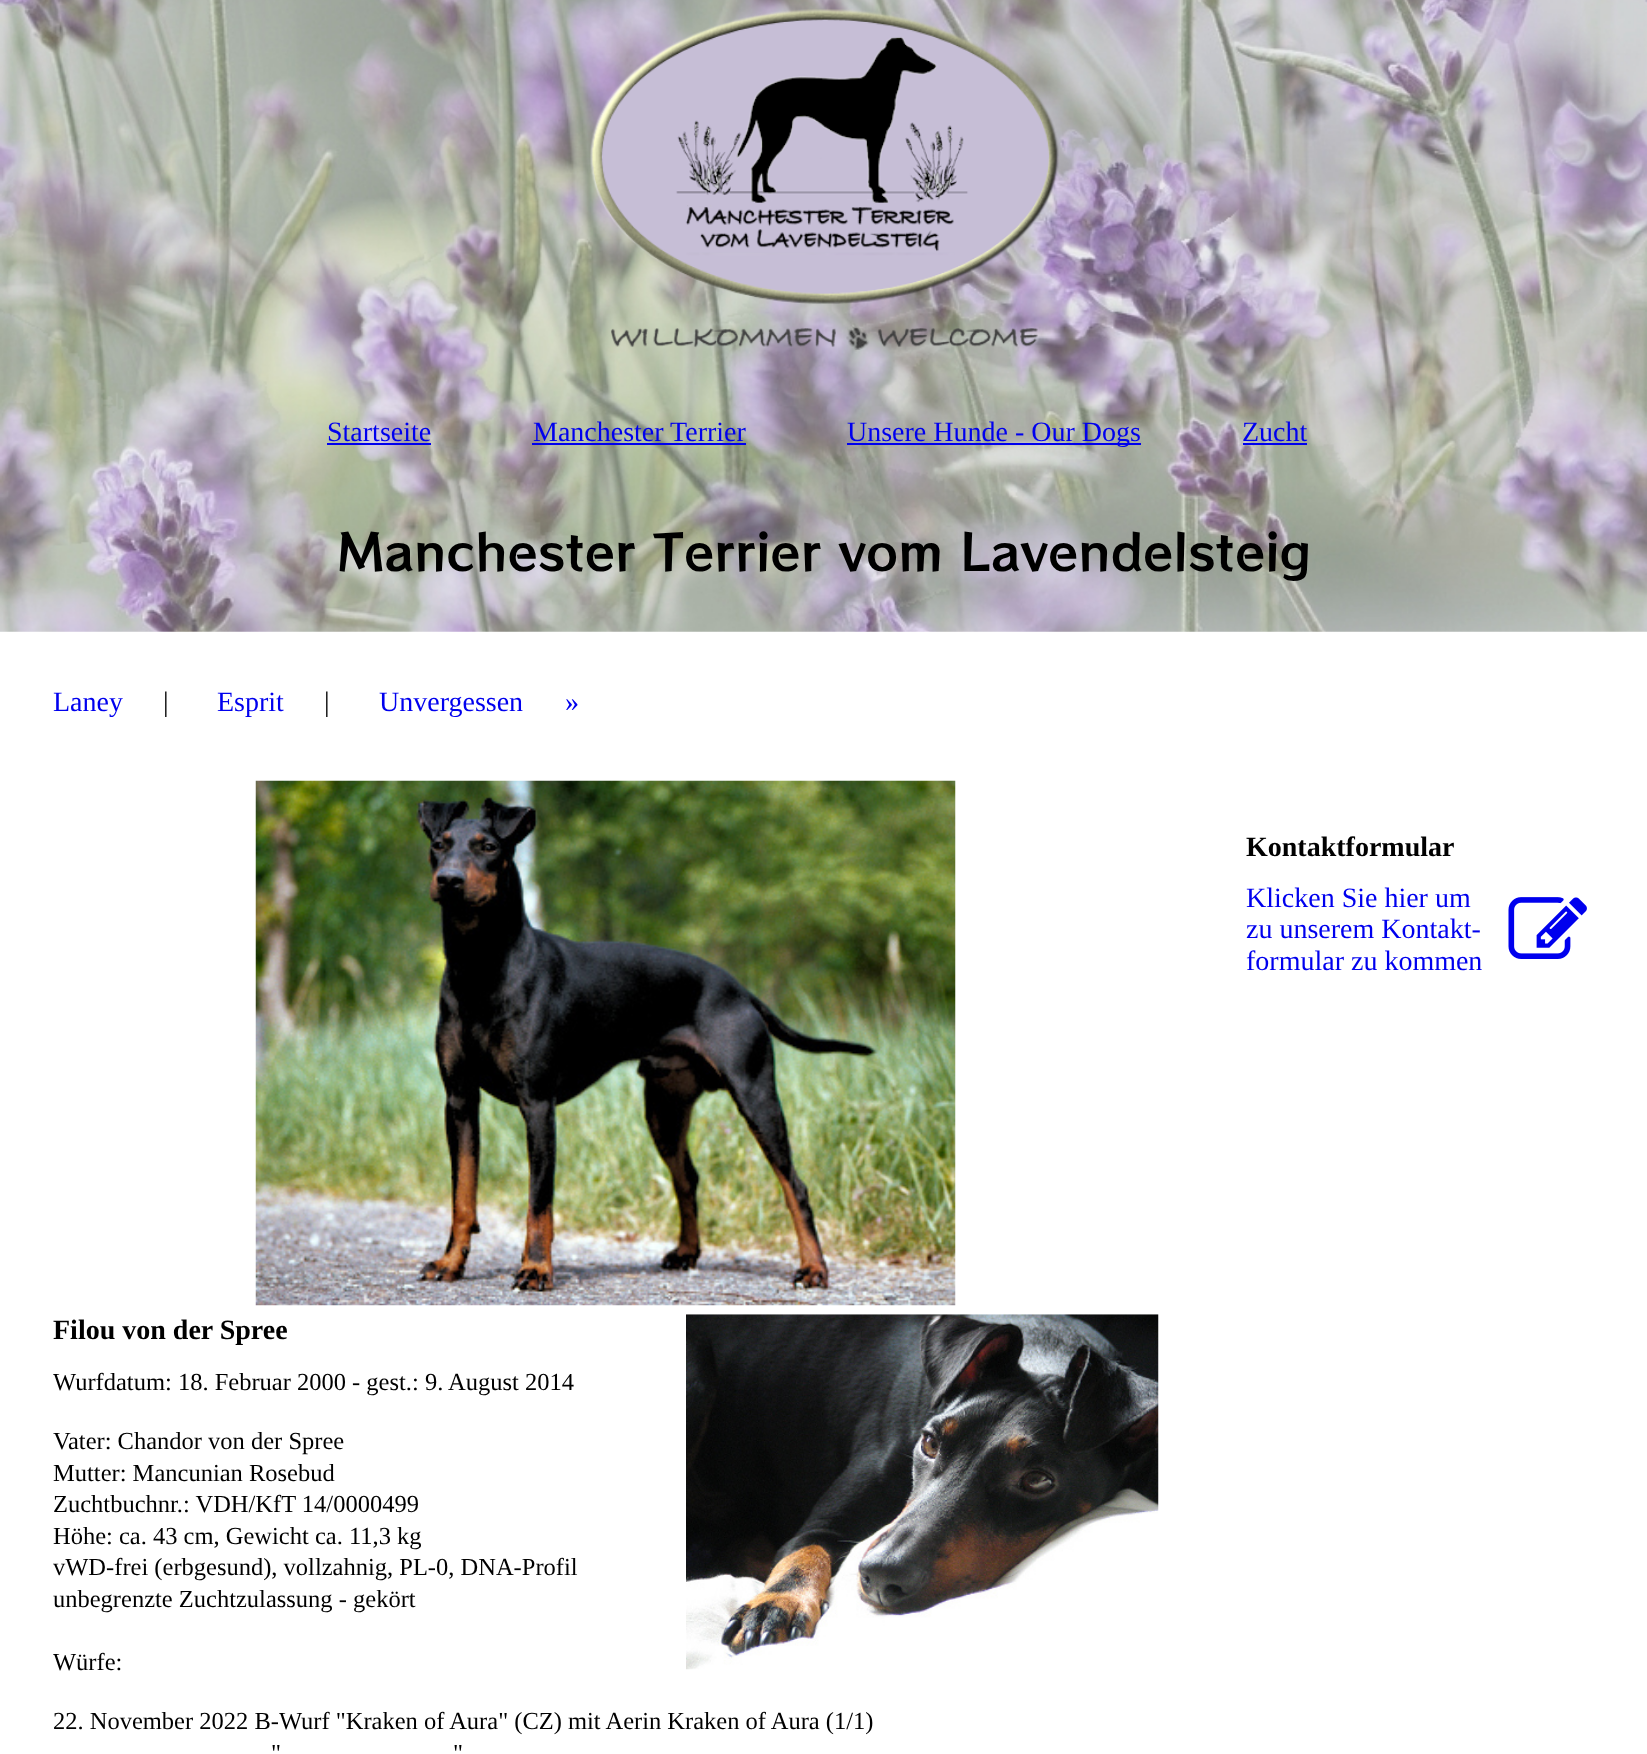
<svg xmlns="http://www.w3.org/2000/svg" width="1647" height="1754">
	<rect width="100%" height="100%" fill="#FFFFFF" />
	<image x="0" y="0" width="1647" height="632" href="assets/img1.png" />
	<image x="590" y="9" width="469" height="341" href="assets/img2.png" />
	<text x="327" y="441" font-family="Liberation Serif" font-size="28" fill="#0000EE">Startseite</text>
	<rect x="327" y="443" width="104" height="2" fill="#0000EE" />
	<text x="533" y="441" font-family="Liberation Serif" font-size="28" fill="#0000EE">Manchester Terrier</text>
	<rect x="532" y="443" width="214" height="2" fill="#0000EE" />
	<rect x="847" y="443" width="294" height="2" fill="#0000EE" />
	<g font-family="Liberation Serif" font-size="28" fill="#0000EE">
		<text x="847" y="441">Unsere Hunde - Our Dogs</text>
		<text x="1242" y="441">Zucht</text>
	</g>
	<rect x="1243" y="443" width="64" height="2" fill="#0000EE" />
	<text x="338" y="571" font-family="RocknRoll One" font-size="49.5" fill="#000000">Manchester Terrier vom Lavendelsteig</text>
	<text x="53" y="711" font-family="Liberation Serif" font-size="28" fill="#0000EE">Laney</text>
	<text x="163" y="711" font-family="Liberation Serif" font-size="28" fill="#000000">|</text>
	<text x="217" y="711" font-family="Liberation Serif" font-size="28" fill="#0000EE">Esprit</text>
	<text x="324" y="711" font-family="Liberation Serif" font-size="28" fill="#000000">|</text>
	<g font-family="Liberation Serif" font-size="28" fill="#0000EE">
		<text x="379" y="711">Unvergessen</text>
		<text x="565" y="711">»</text>
	</g>
	<text x="1246" y="856" font-family="Liberation Serif" font-size="28" font-weight="700" fill="#000000">Kontaktformular</text>
	<g font-family="Liberation Serif" font-size="28" fill="#0000EE">
		<text x="1246" y="907">Klicken Sie hier um</text>
		<text x="1246" y="938">zu unserem Kontakt-</text>
		<text x="1246" y="970">formular zu kommen</text>
	</g>
	<image x="1508" y="897" width="79" height="62" href="assets/img3.png" />
	<image x="255" y="780" width="701" height="526" href="assets/img4.png" />
	<text x="53" y="1339" font-family="Liberation Serif" font-size="28" font-weight="700" fill="#000000">Filou von der Spree</text>
	<image x="686" y="1314" width="473" height="356" href="assets/img5.png" />
	<g font-family="Liberation Serif" font-size="24.5" fill="#000000">
		<text x="53" y="1390">Wurfdatum: 18. Februar 2000 - gest.: 9. August 2014</text>
		<text x="53" y="1449">Vater: Chandor von der Spree</text>
		<text x="53" y="1481">Mutter: Mancunian Rosebud</text>
		<text x="53" y="1512">Zuchtbuchnr.: VDH/KfT 14/0000499</text>
		<text x="53" y="1544">Höhe: ca. 43 cm, Gewicht ca. 11,3 kg</text>
		<text x="53" y="1575">vWD-frei (erbgesund), vollzahnig, PL-0, DNA-Profil</text>
		<text x="53" y="1607">unbegrenzte Zuchtzulassung - gekört</text>
		<text x="53" y="1670">Würfe:</text>
		<text x="53" y="1729">22. November 2022 B-Wurf "Kraken of Aura" (CZ) mit Aerin Kraken of Aura (1/1)</text>
		<text x="271" y="1761">"</text>
		<text x="453" y="1761">"</text>
	</g>
</svg>
